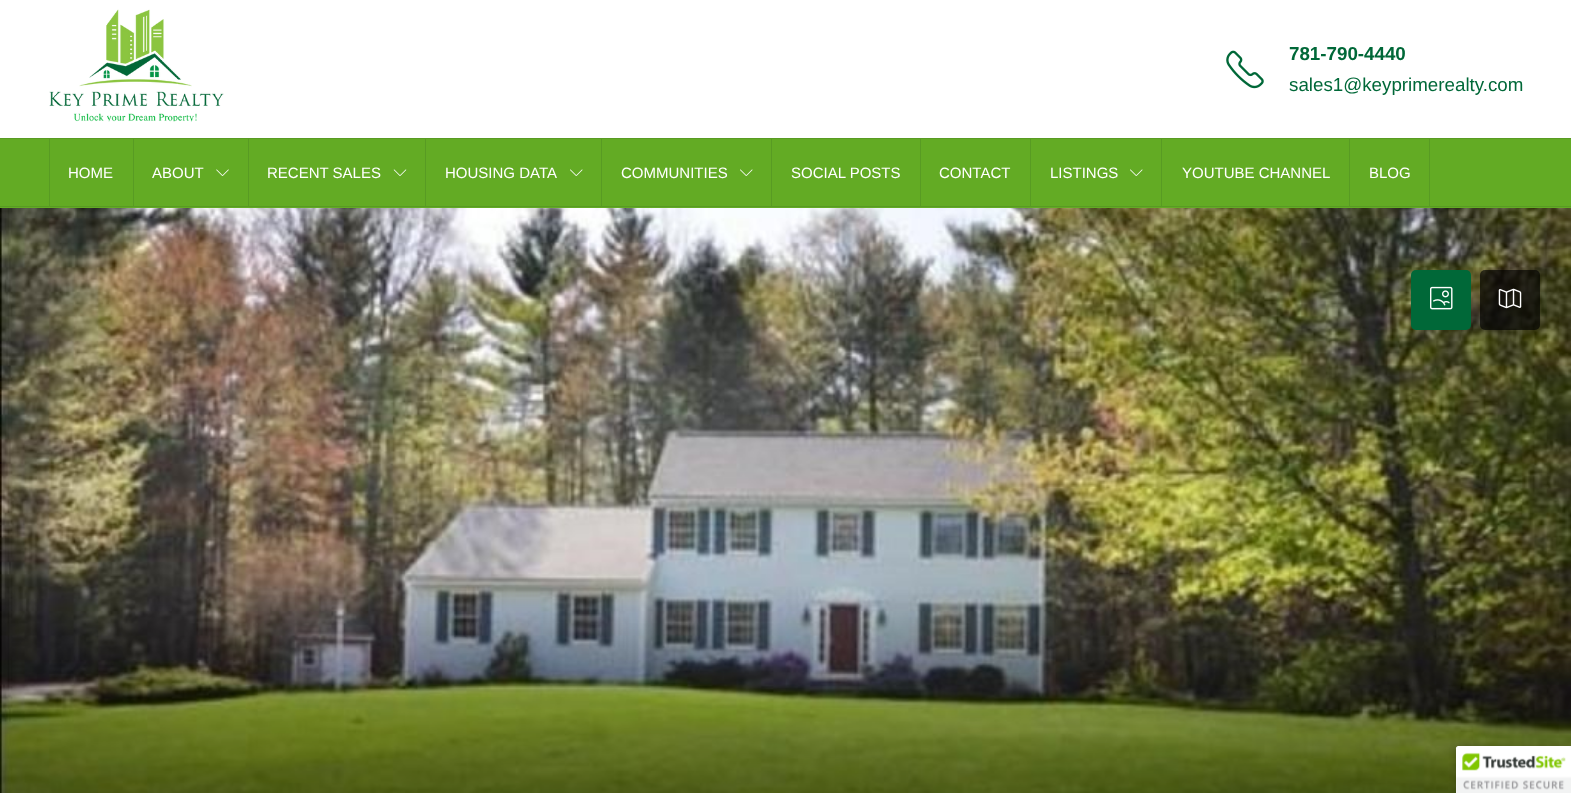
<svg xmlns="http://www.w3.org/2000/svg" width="1571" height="793">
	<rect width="100%" height="100%" fill="#FFFFFF" />
	<image x="49" y="9" width="175" height="113" href="assets/img1.png" />
	<image x="1226" y="50" width="38" height="39" href="assets/img2.png" />
	<text x="1289" y="60" font-family="Liberation Sans" font-size="18.75" font-weight="700" fill="#006838">781-790-4440</text>
	<text x="1289" y="91" font-family="Liberation Sans" font-size="18.75" fill="#006838">sales1@keyprimerealty.com</text>
	<rect x="0" y="139" width="1571" height="69" fill="#63AB24" />
	<rect x="0" y="138" width="1571" height="1" fill="#589B23" />
	<rect x="0" y="206" width="1571" height="1" fill="#589B23" />
	<rect x="133" y="139" width="1" height="67" fill="#589B23" />
	<rect x="49" y="139" width="1" height="67" fill="#589B23" />
	<text x="68" y="178" font-family="Liberation Sans" font-size="15" fill="#FFFFFF">HOME</text>
	<rect x="248" y="139" width="1" height="67" fill="#589B23" />
	<text x="152" y="178" font-family="Liberation Sans" font-size="15" fill="#FFFFFF">ABOUT</text>
	<image x="216" y="169" width="13" height="7" href="assets/img3.png" />
	<rect x="425" y="139" width="1" height="67" fill="#589B23" />
	<text x="267" y="178" font-family="Liberation Sans" font-size="15" fill="#FFFFFF">RECENT SALES</text>
	<image x="393" y="169" width="14" height="7" href="assets/img4.png" />
	<rect x="601" y="139" width="1" height="67" fill="#589B23" />
	<text x="445" y="178" font-family="Liberation Sans" font-size="15" fill="#FFFFFF">HOUSING DATA</text>
	<image x="570" y="169" width="13" height="7" href="assets/img5.png" />
	<rect x="771" y="139" width="1" height="67" fill="#589B23" />
	<text x="621" y="178" font-family="Liberation Sans" font-size="15" fill="#FFFFFF">COMMUNITIES</text>
	<image x="740" y="169" width="13" height="7" href="assets/img5.png" />
	<rect x="920" y="139" width="1" height="67" fill="#589B23" />
	<text x="791" y="178" font-family="Liberation Sans" font-size="15" fill="#FFFFFF">SOCIAL POSTS</text>
	<rect x="1030" y="139" width="1" height="67" fill="#589B23" />
	<text x="939" y="178" font-family="Liberation Sans" font-size="15" fill="#FFFFFF">CONTACT</text>
	<rect x="1161" y="139" width="1" height="67" fill="#589B23" />
	<text x="1050" y="178" font-family="Liberation Sans" font-size="15" fill="#FFFFFF">LISTINGS</text>
	<image x="1130" y="169" width="13" height="7" href="assets/img5.png" />
	<rect x="1349" y="139" width="1" height="67" fill="#589B23" />
	<text x="1182" y="178" font-family="Liberation Sans" font-size="15" fill="#FFFFFF">YOUTUBE CHANNEL</text>
	<rect x="1429" y="139" width="1" height="67" fill="#589B23" />
	<text x="1369" y="178" font-family="Liberation Sans" font-size="15" fill="#FFFFFF">BLOG</text>
	<image x="0" y="208" width="1571" height="585" href="assets/img6.png" />
	<rect x="1411" y="270" width="60" height="60" rx="5" fill="#006838" />
	<image x="1430" y="286" width="23" height="24" href="assets/img7.png" />
	<rect x="1480" y="270" width="60" height="60" rx="5" fill="#000000" fill-opacity="0.65" />
	<image x="1498" y="288" width="24" height="21" href="assets/img8.png" />
	<rect x="1456" y="746" width="115" height="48" rx="2.5" fill="#000000" fill-opacity="0.2" filter="blur(3px)" />
	<path d="M1458.5 746H1571V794H1456V748.5C1456 747 1457 746 1458.5 746Z" fill="#FFFFFF" />
	<image x="1456" y="746" width="115" height="47" href="assets/img9.png" />
</svg>
